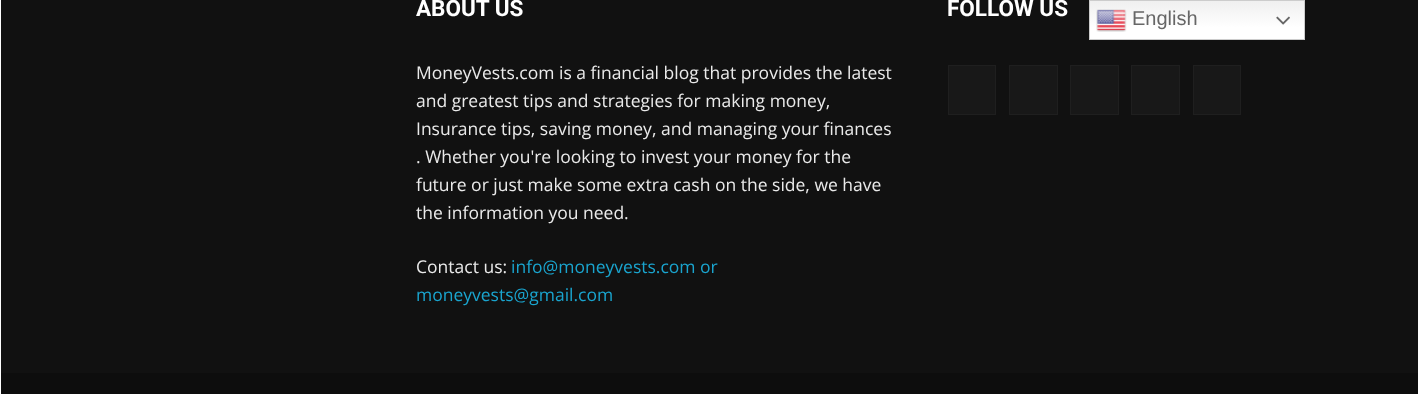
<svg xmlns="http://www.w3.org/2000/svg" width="1418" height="394">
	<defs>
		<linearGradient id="g1" gradientUnits="userSpaceOnUse" x1="1197" y1="0" x2="1197" y2="40"><stop offset="0" stop-color="#EFEFEF" /><stop offset="0.7" stop-color="#FFFFFF" /></linearGradient>
	</defs>
	<rect width="100%" height="100%" fill="#FFFFFF" />
	<rect x="1" y="0" width="1417" height="373" fill="#111111" />
	<text x="416" y="16" font-family="Roboto" font-size="22.5" font-weight="700" fill="#FFFFFF">ABOUT US</text>
	<g font-family="Open Sans" font-size="17.5" fill="#EAEAEA">
		<text x="416" y="79">MoneyVests.com is a financial blog that provides the latest</text>
		<text x="416" y="107">and greatest tips and strategies for making money,</text>
		<text x="416" y="135">Insurance tips, saving money, and managing your finances</text>
		<text x="416" y="163">. Whether you're looking to invest your money for the</text>
		<text x="416" y="191">future or just make some extra cash on the side, we have</text>
		<text x="416" y="219">the information you need.</text>
		<text x="416" y="273">Contact us:</text>
	</g>
	<g font-family="Open Sans" font-size="17.5" fill="#1AA4CE">
		<text x="511" y="273">info@moneyvests.com or</text>
		<text x="416" y="301">moneyvests@gmail.com</text>
	</g>
	<text x="947" y="16" font-family="Roboto" font-size="22.5" font-weight="700" fill="#FFFFFF">FOLLOW US</text>
	<rect x="948.5" y="65.5" width="47" height="49" fill="#181818" stroke="#1F1F1F" />
	<rect x="1009.5" y="65.5" width="48" height="49" fill="#181818" stroke="#1F1F1F" />
	<rect x="1070.5" y="65.5" width="48" height="49" fill="#181818" stroke="#1F1F1F" />
	<rect x="1131.5" y="65.5" width="48" height="49" fill="#181818" stroke="#1F1F1F" />
	<rect x="1193.5" y="65.5" width="47" height="49" fill="#181818" stroke="#1F1F1F" />
	<rect x="1" y="373" width="1417" height="21" fill="#0D0D0D" />
	<rect x="1090" y="1" width="214" height="38" fill="url(#g1)" />
	<rect x="1089.5" y="0.5" width="215" height="39" fill="none" stroke="#CCCCCC" />
	<image x="1096" y="9" width="31" height="23" href="assets/img1.png" />
	<text x="1132" y="25" font-family="Liberation Sans" font-size="20" fill="#666666">English</text>
	<image x="1276" y="16" width="14" height="9" href="assets/img2.png" />
</svg>
